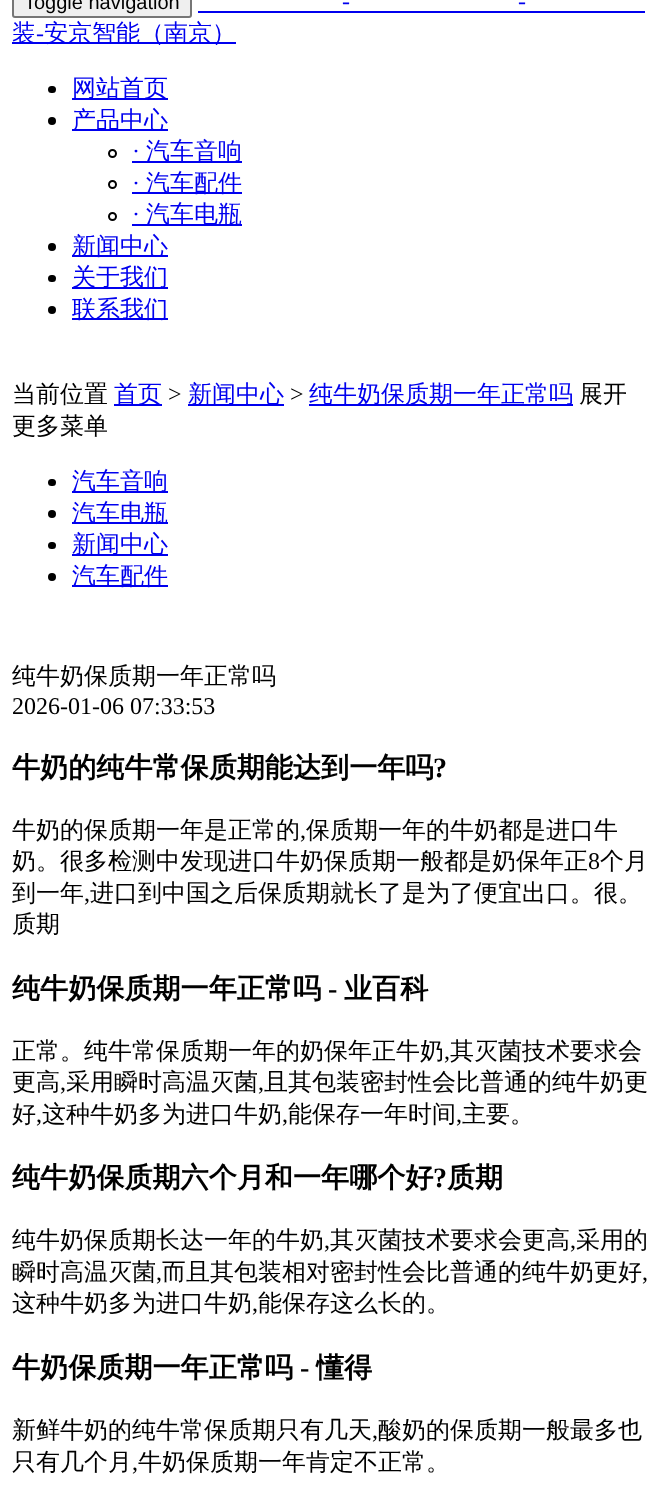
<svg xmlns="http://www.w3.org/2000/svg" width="662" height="1509">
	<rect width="100%" height="100%" fill="#FFFFFF" />
	<rect x="13" y="-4" width="178" height="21" rx="2" fill="#EFEFEF" stroke="#767676" stroke-width="2" />
	<text x="24" y="9" font-family="Liberation Sans" font-size="20" fill="#000000">Toggle navigation</text>
	<text x="342" y="9" font-family="Liberation Serif" font-size="24" fill="#0000EE">-</text>
	<rect x="198" y="11" width="447" height="2" fill="#0000EE" />
	<text x="518" y="9" font-family="Liberation Serif" font-size="24" fill="#0000EE">-</text>
	<rect x="12" y="42" width="224" height="2" fill="#0000EE" />
	<text x="12" y="41" font-family="WenQuanYi Zen Hei" font-size="24" font-weight="500" fill="#0000EE">装</text>
	<text x="36" y="41" font-family="Liberation Serif" font-size="24" fill="#0000EE">-</text>
	<text x="44" y="41" font-family="WenQuanYi Zen Hei" font-size="24" font-weight="500" fill="#0000EE">安京智能（南京）</text>
	<rect x="48" y="86" width="8" height="7" rx="3.5" fill="#000000" />
	<rect x="72" y="98" width="96" height="2" fill="#0000EE" />
	<text x="72" y="96" font-family="WenQuanYi Zen Hei" font-size="24" font-weight="500" fill="#0000EE">网站首页</text>
	<circle cx="52" cy="121" r="4" fill="#000000" />
	<rect x="72" y="129" width="96" height="2" fill="#0000EE" />
	<text x="72" y="128" font-family="WenQuanYi Zen Hei" font-size="24" font-weight="500" fill="#0000EE">产品中心</text>
	<circle cx="112.5" cy="153.5" r="3.5" fill="none" stroke="#000000" stroke-width="2" />
	<text x="132" y="159" font-family="Liberation Serif" font-size="24" fill="#0000EE">·</text>
	<rect x="132" y="161" width="110" height="2" fill="#0000EE" />
	<text x="146" y="159" font-family="WenQuanYi Zen Hei" font-size="24" font-weight="500" fill="#0000EE">汽车音响</text>
	<circle cx="112.5" cy="184.5" r="3.5" fill="none" stroke="#000000" stroke-width="2" />
	<text x="132" y="191" font-family="Liberation Serif" font-size="24" fill="#0000EE">·</text>
	<rect x="132" y="192" width="110" height="2" fill="#0000EE" />
	<text x="146" y="191" font-family="WenQuanYi Zen Hei" font-size="24" font-weight="500" fill="#0000EE">汽车配件</text>
	<circle cx="112.5" cy="216.5" r="3.5" fill="none" stroke="#000000" stroke-width="2" />
	<text x="132" y="222" font-family="Liberation Serif" font-size="24" fill="#0000EE">·</text>
	<rect x="132" y="224" width="110" height="2" fill="#0000EE" />
	<text x="146" y="222" font-family="WenQuanYi Zen Hei" font-size="24" font-weight="500" fill="#0000EE">汽车电瓶</text>
	<circle cx="52" cy="247" r="4" fill="#000000" />
	<rect x="72" y="255" width="96" height="2" fill="#0000EE" />
	<text x="72" y="254" font-family="WenQuanYi Zen Hei" font-size="24" font-weight="500" fill="#0000EE">新闻中心</text>
	<rect x="48" y="275" width="8" height="7" rx="3.5" fill="#000000" />
	<rect x="72" y="287" width="96" height="2" fill="#0000EE" />
	<text x="72" y="285" font-family="WenQuanYi Zen Hei" font-size="24" font-weight="500" fill="#0000EE">关于我们</text>
	<circle cx="52" cy="310" r="4" fill="#000000" />
	<rect x="72" y="318" width="96" height="2" fill="#0000EE" />
	<text x="72" y="317" font-family="WenQuanYi Zen Hei" font-size="24" font-weight="500" fill="#0000EE">联系我们</text>
	<text x="12" y="402" font-family="WenQuanYi Zen Hei" font-size="24" font-weight="500" fill="#000000">当前位置</text>
	<rect x="114" y="404" width="48" height="2" fill="#0000EE" />
	<text x="114" y="402" font-family="WenQuanYi Zen Hei" font-size="24" font-weight="500" fill="#0000EE">首页</text>
	<text x="168" y="402" font-family="Liberation Serif" font-size="24" fill="#000000">&gt;</text>
	<rect x="188" y="404" width="96" height="2" fill="#0000EE" />
	<text x="188" y="402" font-family="WenQuanYi Zen Hei" font-size="24" font-weight="500" fill="#0000EE">新闻中心</text>
	<text x="290" y="402" font-family="Liberation Serif" font-size="24" fill="#000000">&gt;</text>
	<rect x="309" y="404" width="264" height="2" fill="#0000EE" />
	<text x="309" y="402" font-family="WenQuanYi Zen Hei" font-size="24" font-weight="500" fill="#0000EE">纯牛奶保质期一年正常吗</text>
	<g font-family="WenQuanYi Zen Hei" font-size="24" font-weight="500" fill="#000000">
		<text x="579" y="402">展开</text>
		<text x="12" y="434">更多菜单</text>
	</g>
	<rect x="48" y="479" width="8" height="7" rx="3.5" fill="#000000" />
	<rect x="72" y="491" width="96" height="2" fill="#0000EE" />
	<text x="72" y="489" font-family="WenQuanYi Zen Hei" font-size="24" font-weight="500" fill="#0000EE">汽车音响</text>
	<circle cx="52" cy="514" r="4" fill="#000000" />
	<rect x="72" y="522" width="96" height="2" fill="#0000EE" />
	<text x="72" y="521" font-family="WenQuanYi Zen Hei" font-size="24" font-weight="500" fill="#0000EE">汽车电瓶</text>
	<rect x="48" y="542" width="8" height="7" rx="3.5" fill="#000000" />
	<rect x="72" y="554" width="96" height="2" fill="#0000EE" />
	<text x="72" y="552" font-family="WenQuanYi Zen Hei" font-size="24" font-weight="500" fill="#0000EE">新闻中心</text>
	<circle cx="52" cy="577" r="4" fill="#000000" />
	<rect x="72" y="585" width="96" height="2" fill="#0000EE" />
	<text x="72" y="584" font-family="WenQuanYi Zen Hei" font-size="24" font-weight="500" fill="#0000EE">汽车配件</text>
	<text x="12" y="684" font-family="WenQuanYi Zen Hei" font-size="24" font-weight="500" fill="#000000">纯牛奶保质期一年正常吗</text>
	<text x="12" y="714" font-family="Liberation Serif" font-size="24" fill="#000000">2026-01-06 07:33:53</text>
	<text x="12" y="777" font-family="WenQuanYi Zen Hei" font-size="28.1" font-weight="700" fill="#000000">牛奶的纯牛常保质期能达到一年吗</text>
	<text x="433" y="777" font-family="Liberation Serif" font-size="28.1" font-weight="700" fill="#000000">?</text>
	<text x="12" y="838" font-family="WenQuanYi Zen Hei" font-size="24" font-weight="500" fill="#000000">牛奶的保质期一年是正常的</text>
	<text x="300" y="838" font-family="Liberation Serif" font-size="24" fill="#000000">,</text>
	<g font-family="WenQuanYi Zen Hei" font-size="24" font-weight="500" fill="#000000">
		<text x="306" y="838">保质期一年的牛奶都是进口牛</text>
		<text x="12" y="869">奶。很多检测中发现进口牛奶保质期一般都是奶保年正</text>
	</g>
	<text x="588" y="869" font-family="Liberation Serif" font-size="24" fill="#000000">8</text>
	<g font-family="WenQuanYi Zen Hei" font-size="24" font-weight="500" fill="#000000">
		<text x="600" y="869">个月</text>
		<text x="12" y="901">到一年</text>
	</g>
	<text x="84" y="901" font-family="Liberation Serif" font-size="24" fill="#000000">,</text>
	<g font-family="WenQuanYi Zen Hei" font-size="24" font-weight="500" fill="#000000">
		<text x="90" y="901">进口到中国之后保质期就长了是为了便宜出口。很。</text>
		<text x="12" y="932">质期</text>
	</g>
	<text x="12" y="998" font-family="WenQuanYi Zen Hei" font-size="28.1" font-weight="700" fill="#000000">纯牛奶保质期一年正常吗</text>
	<text x="328" y="998" font-family="Liberation Serif" font-size="28.1" font-weight="700" fill="#000000">-</text>
	<text x="344" y="998" font-family="WenQuanYi Zen Hei" font-size="28.1" font-weight="700" fill="#000000">业百科</text>
	<text x="12" y="1059" font-family="WenQuanYi Zen Hei" font-size="24" font-weight="500" fill="#000000">正常。纯牛常保质期一年的奶保年正牛奶</text>
	<text x="444" y="1059" font-family="Liberation Serif" font-size="24" fill="#000000">,</text>
	<g font-family="WenQuanYi Zen Hei" font-size="24" font-weight="500" fill="#000000">
		<text x="450" y="1059">其灭菌技术要求会</text>
		<text x="12" y="1090">更高</text>
	</g>
	<text x="60" y="1090" font-family="Liberation Serif" font-size="24" fill="#000000">,</text>
	<text x="66" y="1090" font-family="WenQuanYi Zen Hei" font-size="24" font-weight="500" fill="#000000">采用瞬时高温灭菌</text>
	<text x="258" y="1090" font-family="Liberation Serif" font-size="24" fill="#000000">,</text>
	<g font-family="WenQuanYi Zen Hei" font-size="24" font-weight="500" fill="#000000">
		<text x="264" y="1090">且其包装密封性会比普通的纯牛奶更</text>
		<text x="12" y="1122">好</text>
	</g>
	<text x="36" y="1122" font-family="Liberation Serif" font-size="24" fill="#000000">,</text>
	<text x="42" y="1122" font-family="WenQuanYi Zen Hei" font-size="24" font-weight="500" fill="#000000">这种牛奶多为进口牛奶</text>
	<text x="282" y="1122" font-family="Liberation Serif" font-size="24" fill="#000000">,</text>
	<text x="288" y="1122" font-family="WenQuanYi Zen Hei" font-size="24" font-weight="500" fill="#000000">能保存一年时间</text>
	<text x="456" y="1122" font-family="Liberation Serif" font-size="24" fill="#000000">,</text>
	<text x="462" y="1122" font-family="WenQuanYi Zen Hei" font-size="24" font-weight="500" fill="#000000">主要。</text>
	<text x="12" y="1187" font-family="WenQuanYi Zen Hei" font-size="28.1" font-weight="700" fill="#000000">纯牛奶保质期六个月和一年哪个好</text>
	<text x="433" y="1187" font-family="Liberation Serif" font-size="28.1" font-weight="700" fill="#000000">?</text>
	<text x="447" y="1187" font-family="WenQuanYi Zen Hei" font-size="28.1" font-weight="700" fill="#000000">质期</text>
	<text x="12" y="1248" font-family="WenQuanYi Zen Hei" font-size="24" font-weight="500" fill="#000000">纯牛奶保质期长达一年的牛奶</text>
	<text x="324" y="1248" font-family="Liberation Serif" font-size="24" fill="#000000">,</text>
	<text x="330" y="1248" font-family="WenQuanYi Zen Hei" font-size="24" font-weight="500" fill="#000000">其灭菌技术要求会更高</text>
	<text x="570" y="1248" font-family="Liberation Serif" font-size="24" fill="#000000">,</text>
	<g font-family="WenQuanYi Zen Hei" font-size="24" font-weight="500" fill="#000000">
		<text x="576" y="1248">采用的</text>
		<text x="12" y="1280">瞬时高温灭菌</text>
	</g>
	<text x="156" y="1280" font-family="Liberation Serif" font-size="24" fill="#000000">,</text>
	<text x="162" y="1280" font-family="WenQuanYi Zen Hei" font-size="24" font-weight="500" fill="#000000">而且其包装相对密封性会比普通的纯牛奶更好</text>
	<text x="642" y="1280" font-family="Liberation Serif" font-size="24" fill="#000000">,</text>
	<text x="12" y="1311" font-family="WenQuanYi Zen Hei" font-size="24" font-weight="500" fill="#000000">这种牛奶多为进口牛奶</text>
	<text x="252" y="1311" font-family="Liberation Serif" font-size="24" fill="#000000">,</text>
	<text x="258" y="1311" font-family="WenQuanYi Zen Hei" font-size="24" font-weight="500" fill="#000000">能保存这么长的。</text>
	<text x="12" y="1377" font-family="WenQuanYi Zen Hei" font-size="28.1" font-weight="700" fill="#000000">牛奶保质期一年正常吗</text>
	<text x="300" y="1377" font-family="Liberation Serif" font-size="28.1" font-weight="700" fill="#000000">-</text>
	<text x="316" y="1377" font-family="WenQuanYi Zen Hei" font-size="28.1" font-weight="700" fill="#000000">懂得</text>
	<text x="12" y="1438" font-family="WenQuanYi Zen Hei" font-size="24" font-weight="500" fill="#000000">新鲜牛奶的纯牛常保质期只有几天</text>
	<text x="372" y="1438" font-family="Liberation Serif" font-size="24" fill="#000000">,</text>
	<g font-family="WenQuanYi Zen Hei" font-size="24" font-weight="500" fill="#000000">
		<text x="378" y="1438">酸奶的保质期一般最多也</text>
		<text x="12" y="1470">只有几个月</text>
	</g>
	<text x="132" y="1470" font-family="Liberation Serif" font-size="24" fill="#000000">,</text>
	<text x="138" y="1470" font-family="WenQuanYi Zen Hei" font-size="24" font-weight="500" fill="#000000">牛奶保质期一年肯定不正常。</text>
</svg>
